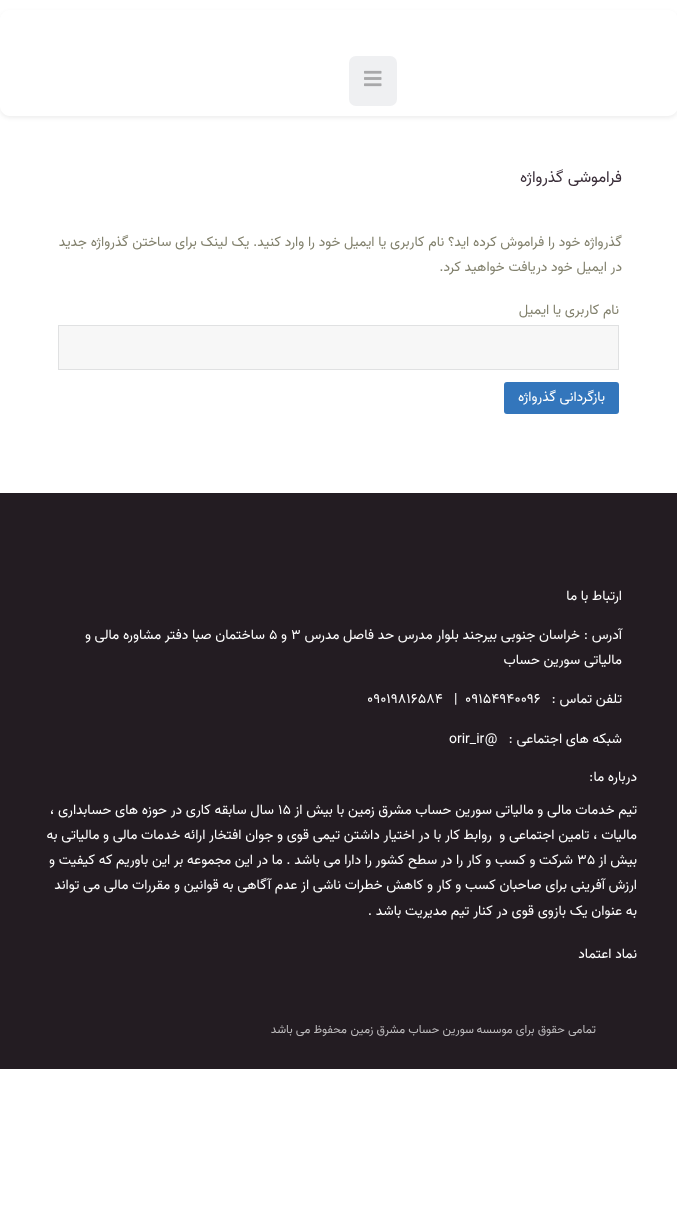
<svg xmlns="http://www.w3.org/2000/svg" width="677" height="1228">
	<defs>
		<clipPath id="clip1"><path d="M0 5H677V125H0ZM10 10H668C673.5 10 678 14.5 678 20V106C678 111.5 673.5 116 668 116H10C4.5 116 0 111.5 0 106V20C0 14.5 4.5 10 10 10Z" clip-rule="evenodd" /></clipPath>
	</defs>
	<rect width="100%" height="100%" fill="#FFFFFF" />
	<g clip-path="url(#clip1)">
		<rect x="0" y="12" width="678" height="106" rx="10" fill="#000000" fill-opacity="0.07" filter="blur(2px)" />
	</g>
	<rect x="349" y="56" width="48" height="50" rx="7" fill="#EFF0F2" />
	<image x="364" y="70" width="18" height="17" href="assets/img1.png" />
	<text x="622" y="182" font-family="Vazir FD" font-size="16" direction="rtl" fill="#3A2E39">فراموشی گذرواژه</text>
	<g font-family="Vazir FD" font-size="14" direction="rtl" fill="#82816D">
		<text x="622" y="246">گذرواژه خود را فراموش کرده اید؟ نام کاربری یا ایمیل خود را وارد کنید. یک لینک برای ساختن گذرواژه جدید</text>
		<text x="622" y="271">در ایمیل خود دریافت خواهید کرد.</text>
		<text x="619" y="314">نام کاربری یا ایمیل</text>
	</g>
	<rect x="58.5" y="325.5" width="560" height="44" fill="#F7F7F7" stroke="#E0E1E2" />
	<rect x="504" y="382" width="115" height="32" rx="3" fill="#3376BC" />
	<text x="605" y="401" font-family="Vazir FD" font-size="14" direction="rtl" fill="#FFFFFF">بازگردانی گذرواژه</text>
	<rect x="0" y="493" width="677" height="576" fill="#231C22" />
	<g font-family="Vazir FD" font-size="14" direction="rtl" fill="#FFFFFF">
		<text x="622" y="600">ارتباط با ما</text>
		<text x="622" y="639">آدرس : خراسان جنوبی بیرجند بلوار مدرس حد فاصل مدرس</text>
	</g>
	<text x="291" y="639" font-family="Vazir FD" font-size="14" fill="#FFFFFF">3</text>
	<text x="287" y="639" font-family="Vazir FD" font-size="14" direction="rtl" fill="#FFFFFF">و</text>
	<text x="269" y="639" font-family="Vazir FD" font-size="14" fill="#FFFFFF">5</text>
	<g font-family="Vazir FD" font-size="14" direction="rtl" fill="#FFFFFF">
		<text x="265" y="639">ساختمان صبا دفتر مشاوره مالی و</text>
		<text x="622" y="664">مالیاتی سورین حساب</text>
		<text x="622" y="703">تلفن تماس :</text>
	</g>
	<g font-family="Vazir FD" font-size="14" fill="#FFFFFF">
		<text x="465" y="703">09154940096</text>
		<text x="454" y="703">|</text>
		<text x="367" y="703">09019816584</text>
	</g>
	<text x="622" y="743" font-family="Vazir FD" font-size="14" direction="rtl" fill="#FFFFFF" xml:space="preserve">شبکه های اجتماعی :   @</text>
	<text x="449" y="743" font-family="Vazir FD" font-size="14" fill="#FFFFFF">orir_ir</text>
	<g font-family="Vazir FD" font-size="14" direction="rtl" fill="#FFFFFF">
		<text x="637" y="781">درباره ما:</text>
		<text x="637" y="814">تیم خدمات مالی و مالیاتی سورین حساب مشرق زمین با بیش از</text>
	</g>
	<text x="278" y="814" font-family="Vazir FD" font-size="14" fill="#FFFFFF">15</text>
	<g font-family="Vazir FD" font-size="14" direction="rtl" fill="#FFFFFF">
		<text x="274" y="814">سال سابقه کاری در حوزه های حسابداری ،</text>
		<text x="637" y="839" xml:space="preserve">مالیات ، تامین اجتماعی و  روابط کار با در اختیار داشتن تیمی قوی و جوان افتخار ارائه خدمات مالی و مالیاتی به</text>
		<text x="637" y="864">بیش از</text>
	</g>
	<text x="577" y="864" font-family="Vazir FD" font-size="14" fill="#FFFFFF">35</text>
	<g font-family="Vazir FD" font-size="14" direction="rtl" fill="#FFFFFF">
		<text x="573" y="864">شرکت و کسب و کار را در سطح کشور را دارا می باشد . ما در این مجموعه بر این باوریم که کیفیت و</text>
		<text x="637" y="889">ارزش آفرینی برای صاحبان کسب و کار و کاهش خطرات ناشی از عدم آگاهی به قوانین و مقررات مالی می تواند</text>
		<text x="637" y="915">به عنوان یک بازوی قوی در کنار تیم مدیریت باشد .</text>
		<text x="637" y="958">نماد اعتماد</text>
	</g>
	<g font-family="Vazir FD" font-size="12" direction="rtl" fill="#BDBBBD">
		<text x="596" y="1033">تمامی حقوق برای موسسه</text>
		<text x="474" y="1033">سورین حساب مشرق زمین</text>
		<text x="347" y="1033">محفوظ می باشد</text>
	</g>
</svg>
